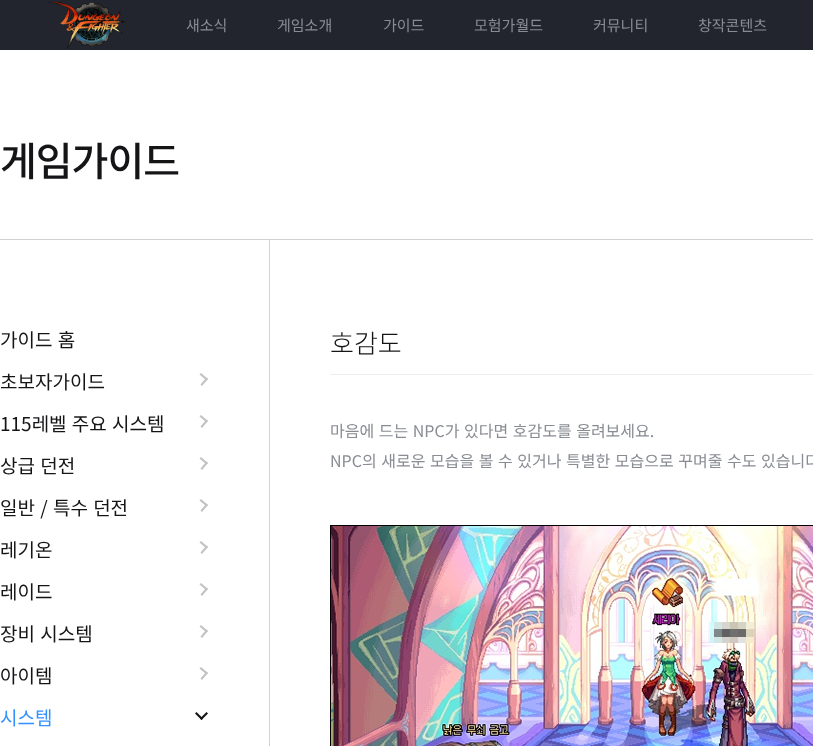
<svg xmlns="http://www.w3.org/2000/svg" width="813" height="746">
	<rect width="100%" height="100%" fill="#FFFFFF" />
	<rect x="0" y="0" width="813" height="50" fill="#22252D" />
	<image x="47" y="2" width="79" height="47" href="assets/img1.png" />
	<g font-family="Noto Sans KR" font-size="15" fill="#898C92">
		<text x="186" y="31">새소식</text>
		<text x="277" y="31">게임소개</text>
		<text x="383" y="31">가이드</text>
		<text x="474" y="31">모험가월드</text>
		<text x="593" y="31">커뮤니티</text>
		<text x="698" y="31">창작콘텐츠</text>
	</g>
	<rect x="0" y="239" width="813" height="1" fill="#D1D2D4" />
	<text x="0" y="176" font-family="Noto Sans KR" font-size="40" font-weight="500" letter-spacing="-1" fill="#151518">게임가이드</text>
	<rect x="269" y="240" width="1" height="506" fill="#D1D2D4" />
	<g font-family="Noto Sans KR" font-size="19" fill="#151518">
		<text x="0" y="347" word-spacing="1">가이드 홈</text>
		<text x="0" y="389">초보자가이드</text>
	</g>
	<path d="M201 373L208 379L206.5 380.5L199.5 374.5Z" fill="#C2C2C2" />
	<path d="M206.5 377.5L208 379L202 386L200.5 384.5Z" fill="#C2C2C2" />
	<text x="0" y="431" word-spacing="1" font-family="Noto Sans KR" font-size="19" fill="#151518">115레벨 주요 시스템</text>
	<path d="M201 415L208 421L206.5 422.5L199.5 416.5Z" fill="#C2C2C2" />
	<path d="M206.5 419.5L208 421L202 428L200.5 426.5Z" fill="#C2C2C2" />
	<text x="0" y="473" word-spacing="1" font-family="Noto Sans KR" font-size="19" fill="#151518">상급 던전</text>
	<path d="M201 457L208 463L206.5 464.5L199.5 458.5Z" fill="#C2C2C2" />
	<path d="M206.5 461.5L208 463L202 470L200.5 468.5Z" fill="#C2C2C2" />
	<text x="0" y="515" word-spacing="1" font-family="Noto Sans KR" font-size="19" fill="#151518">일반 / 특수 던전</text>
	<path d="M201 499L208 505L206.5 506.5L199.5 500.5Z" fill="#C2C2C2" />
	<path d="M206.5 503.5L208 505L202 512L200.5 510.5Z" fill="#C2C2C2" />
	<text x="0" y="557" font-family="Noto Sans KR" font-size="19" fill="#151518">레기온</text>
	<path d="M201 541L208 547L206.5 548.5L199.5 542.5Z" fill="#C2C2C2" />
	<path d="M206.5 545.5L208 547L202 554L200.5 552.5Z" fill="#C2C2C2" />
	<text x="0" y="599" font-family="Noto Sans KR" font-size="19" fill="#151518">레이드</text>
	<path d="M201 583L208 589L206.5 590.5L199.5 584.5Z" fill="#C2C2C2" />
	<path d="M206.5 587.5L208 589L202 596L200.5 594.5Z" fill="#C2C2C2" />
	<text x="0" y="641" word-spacing="1" font-family="Noto Sans KR" font-size="19" fill="#151518">장비 시스템</text>
	<path d="M201 625L208 631L206.5 632.5L199.5 626.5Z" fill="#C2C2C2" />
	<path d="M206.5 629.5L208 631L202 638L200.5 636.5Z" fill="#C2C2C2" />
	<text x="0" y="683" font-family="Noto Sans KR" font-size="19" fill="#151518">아이템</text>
	<path d="M201 667L208 673L206.5 674.5L199.5 668.5Z" fill="#C2C2C2" />
	<path d="M206.5 671.5L208 673L202 680L200.5 678.5Z" fill="#C2C2C2" />
	<text x="0" y="725" font-family="Noto Sans KR" font-size="19" fill="#3392FF">시스템</text>
	<path d="M208 713.5L201.5 720L200 718.5L206.5 712Z" fill="#151518" />
	<path d="M203 718.5L201.5 720L195 713.5L196.5 712Z" fill="#151518" />
	<rect x="330" y="374" width="483" height="1" fill="#EEEDF2" />
	<text x="330" y="353" font-family="Noto Sans KR" font-size="26" font-weight="300" fill="#151518">호감도</text>
	<g font-family="Noto Sans KR" font-size="16" fill="#898C92">
		<text x="330" y="437" word-spacing="1">마음에 드는 NPC가 있다면 호감도를 올려보세요.</text>
		<text x="330" y="467" word-spacing="1">NPC의 새로운 모습을 볼 수 있거나 특별한 모습으로 꾸며줄 수도 있습니다</text>
	</g>
	<image x="330" y="525" width="483" height="221" href="assets/img2.png" />
</svg>
